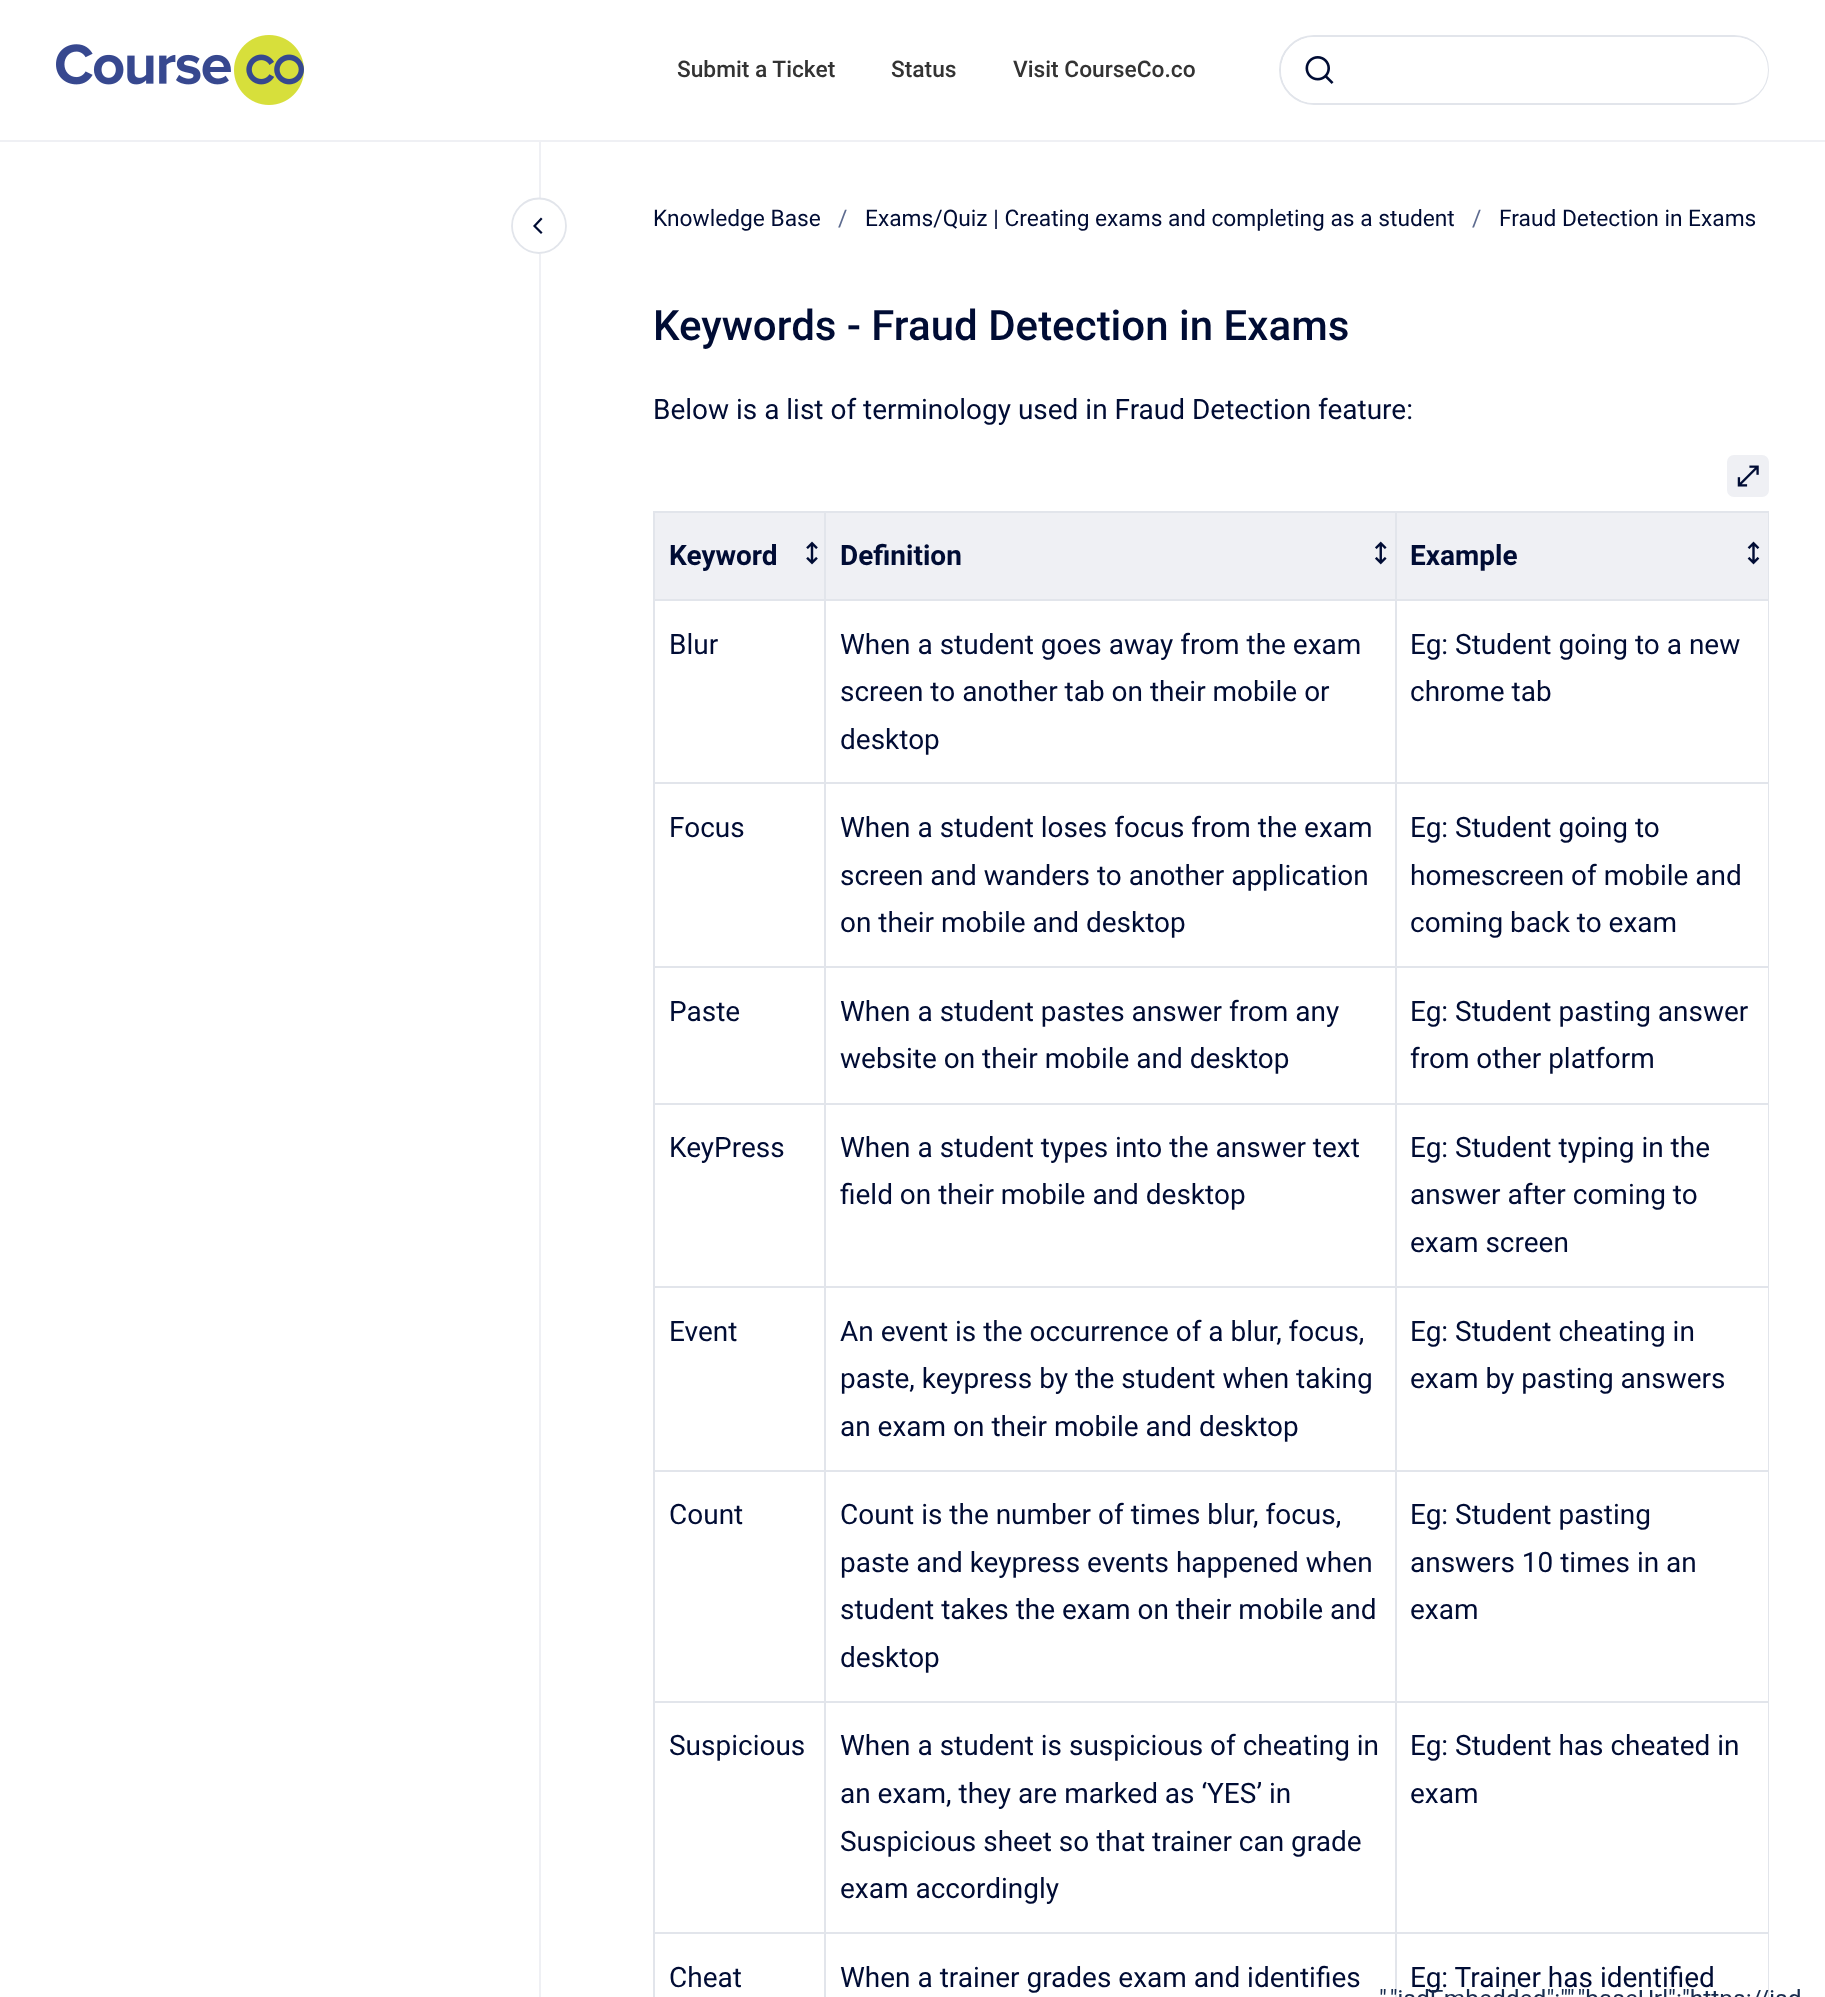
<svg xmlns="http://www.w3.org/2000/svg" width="1825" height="1997">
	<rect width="100%" height="100%" fill="#FFFFFF" />
	<rect x="0" y="140" width="1825" height="2" fill="#EFF0F4" />
	<image x="56" y="35" width="248" height="70" href="assets/img1.png" />
	<g font-family="Roboto" font-size="22.75" font-weight="500" fill="#333333">
		<text x="677" y="77">Submit a Ticket</text>
		<text x="891" y="77">Status</text>
		<text x="1013" y="77">Visit CourseCo.co</text>
	</g>
	<rect x="1280" y="36" width="488" height="68" rx="34" fill="none" stroke="#E2E5EB" stroke-width="2" />
	<rect x="1281" y="37" width="487" height="66" rx="33" fill="#FFFFFF" />
	<image x="1305" y="56" width="29" height="28" href="assets/img2.png" />
	<rect x="539" y="142" width="2" height="1855" fill="#EFF0F4" />
	<path d="M539 254C524 254 511 241 511 226C511 210 524 198 539 198C554 198 567 210 567 226C567 241 554 254 539 254Z" fill="#FFFFFF" />
	<path d="M539 253C524 253 512 240.5 512 226C512 211 524 198.5 539 198.5C554 198.5 566 211 566 226C566 240.5 554 253 539 253Z" fill="none" stroke="#E2E5EB" stroke-width="1.8" />
	<path d="M541 232.5L534.5 226L541 219" fill="none" stroke="#000C34" stroke-width="2.2" stroke-linecap="square" />
	<text x="653" y="226" font-family="Roboto" font-size="22.75" fill="#000C34">Knowledge Base</text>
	<text x="838" y="226" font-family="Roboto" font-size="22.75" fill="#5D6B8F">/</text>
	<text x="865" y="226" font-family="Roboto" font-size="22.75" fill="#000C34">Exams/Quiz | Creating exams and completing as a student</text>
	<text x="1472" y="226" font-family="Roboto" font-size="22.75" fill="#5D6B8F">/</text>
	<text x="1499" y="226" font-family="Roboto" font-size="22.75" fill="#000C34">Fraud Detection in Exams</text>
	<text x="653" y="340" font-family="Roboto" font-size="42" font-weight="500" fill="#000C34">Keywords - Fraud Detection in Exams</text>
	<text x="653" y="419" font-family="Roboto" font-size="28" fill="#000C34">Below is a list of terminology used in Fraud Detection feature:</text>
	<rect x="1728" y="456" width="40" height="40" rx="6" fill="#EFF0F4" stroke="#EFF0F4" stroke-width="2" />
	<image x="1737" y="465" width="22" height="22" href="assets/img3.png" />
	<rect x="653" y="511" width="1116" height="2" fill="#E2E5EB" />
	<rect x="1768" y="511" width="1" height="1486" fill="#E2E5EB" />
	<rect x="653" y="511" width="2" height="1486" fill="#E2E5EB" />
	<rect x="655" y="513" width="169" height="86" fill="#EFF0F4" />
	<image x="806" y="541" width="12" height="24" href="assets/img4.png" />
	<text x="669" y="565" font-family="Roboto" font-size="28" font-weight="700" fill="#000C34">Keyword</text>
	<rect x="826" y="513" width="569" height="86" fill="#EFF0F4" />
	<image x="1375" y="541" width="12" height="24" href="assets/img5.png" />
	<rect x="1395" y="599" width="374" height="2" fill="#E2E5EB" />
	<rect x="1395" y="782" width="374" height="2" fill="#E2E5EB" />
	<rect x="1395" y="966" width="374" height="2" fill="#E2E5EB" />
	<rect x="1395" y="1103" width="374" height="2" fill="#E2E5EB" />
	<rect x="1395" y="1286" width="374" height="2" fill="#E2E5EB" />
	<rect x="1395" y="1470" width="374" height="2" fill="#E2E5EB" />
	<rect x="1395" y="1701" width="374" height="2" fill="#E2E5EB" />
	<rect x="1395" y="1932" width="374" height="2" fill="#E2E5EB" />
	<rect x="1395" y="1932" width="2" height="65" fill="#E2E5EB" />
	<rect x="824" y="1932" width="573" height="2" fill="#E2E5EB" />
	<rect x="1395" y="1701" width="2" height="233" fill="#E2E5EB" />
	<rect x="824" y="1701" width="573" height="2" fill="#E2E5EB" />
	<rect x="1395" y="1470" width="2" height="233" fill="#E2E5EB" />
	<rect x="824" y="1470" width="573" height="2" fill="#E2E5EB" />
	<rect x="1395" y="1286" width="2" height="186" fill="#E2E5EB" />
	<rect x="824" y="1286" width="573" height="2" fill="#E2E5EB" />
	<rect x="1395" y="1103" width="2" height="185" fill="#E2E5EB" />
	<rect x="824" y="1103" width="573" height="2" fill="#E2E5EB" />
	<rect x="1395" y="966" width="2" height="138" fill="#E2E5EB" />
	<rect x="824" y="966" width="573" height="2" fill="#E2E5EB" />
	<rect x="1395" y="782" width="2" height="186" fill="#E2E5EB" />
	<rect x="824" y="782" width="573" height="2" fill="#E2E5EB" />
	<rect x="1395" y="599" width="2" height="185" fill="#E2E5EB" />
	<rect x="824" y="599" width="573" height="2" fill="#E2E5EB" />
	<rect x="824" y="1932" width="2" height="65" fill="#E2E5EB" />
	<rect x="653" y="1932" width="173" height="2" fill="#E2E5EB" />
	<rect x="824" y="1701" width="2" height="233" fill="#E2E5EB" />
	<rect x="653" y="1701" width="173" height="2" fill="#E2E5EB" />
	<rect x="824" y="1470" width="2" height="233" fill="#E2E5EB" />
	<rect x="653" y="1470" width="173" height="2" fill="#E2E5EB" />
	<rect x="824" y="1286" width="2" height="186" fill="#E2E5EB" />
	<rect x="653" y="1286" width="173" height="2" fill="#E2E5EB" />
	<rect x="824" y="1103" width="2" height="185" fill="#E2E5EB" />
	<rect x="653" y="1103" width="173" height="2" fill="#E2E5EB" />
	<rect x="824" y="966" width="2" height="138" fill="#E2E5EB" />
	<rect x="653" y="966" width="173" height="2" fill="#E2E5EB" />
	<rect x="824" y="782" width="2" height="186" fill="#E2E5EB" />
	<rect x="653" y="782" width="173" height="2" fill="#E2E5EB" />
	<rect x="824" y="599" width="2" height="185" fill="#E2E5EB" />
	<rect x="653" y="599" width="173" height="2" fill="#E2E5EB" />
	<rect x="824" y="511" width="2" height="89" fill="#E2E5EB" />
	<text x="840" y="565" font-family="Roboto" font-size="28" font-weight="700" fill="#000C34">Definition</text>
	<rect x="1397" y="513" width="371" height="86" fill="#EFF0F4" />
	<image x="1747" y="541" width="13" height="24" href="assets/img6.png" />
	<rect x="1395" y="511" width="2" height="89" fill="#E2E5EB" />
	<text x="1410" y="565" font-family="Roboto" font-size="28" font-weight="700" fill="#000C34">Example</text>
	<g font-family="Roboto" font-size="28" fill="#000C34">
		<text x="669" y="654">Blur</text>
		<text x="840" y="654">When a student goes away from the exam</text>
		<text x="840" y="701">screen to another tab on their mobile or</text>
		<text x="840" y="749">desktop</text>
		<text x="1410" y="654">Eg: Student going to a new</text>
		<text x="1410" y="701">chrome tab</text>
		<text x="669" y="837">Focus</text>
		<text x="840" y="837">When a student loses focus from the exam</text>
		<text x="840" y="885">screen and wanders to another application</text>
		<text x="840" y="932">on their mobile and desktop</text>
		<text x="1410" y="837">Eg: Student going to</text>
		<text x="1410" y="885">homescreen of mobile and</text>
		<text x="1410" y="932">coming back to exam</text>
		<text x="669" y="1021">Paste</text>
		<text x="840" y="1021">When a student pastes answer from any</text>
		<text x="840" y="1068">website on their mobile and desktop</text>
		<text x="1410" y="1021">Eg: Student pasting answer</text>
		<text x="1410" y="1068">from other platform</text>
		<text x="669" y="1157">KeyPress</text>
		<text x="840" y="1157">When a student types into the answer text</text>
		<text x="840" y="1204">field on their mobile and desktop</text>
		<text x="1410" y="1157">Eg: Student typing in the</text>
		<text x="1410" y="1204">answer after coming to</text>
		<text x="1410" y="1252">exam screen</text>
		<text x="669" y="1341">Event</text>
		<text x="840" y="1341">An event is the occurrence of a blur, focus,</text>
		<text x="840" y="1388">paste, keypress by the student when taking</text>
		<text x="840" y="1436">an exam on their mobile and desktop</text>
		<text x="1410" y="1341">Eg: Student cheating in</text>
		<text x="1410" y="1388">exam by pasting answers</text>
		<text x="669" y="1524">Count</text>
		<text x="840" y="1524">Count is the number of times blur, focus,</text>
		<text x="840" y="1572">paste and keypress events happened when</text>
		<text x="840" y="1619">student takes the exam on their mobile and</text>
		<text x="840" y="1667">desktop</text>
		<text x="1410" y="1524">Eg: Student pasting</text>
		<text x="1410" y="1572">answers 10 times in an</text>
		<text x="1410" y="1619">exam</text>
		<text x="669" y="1755">Suspicious</text>
		<text x="840" y="1755">When a student is suspicious of cheating in</text>
		<text x="840" y="1803">an exam, they are marked as ‘YES’ in</text>
		<text x="840" y="1851">Suspicious sheet so that trainer can grade</text>
		<text x="840" y="1898">exam accordingly</text>
		<text x="1410" y="1755">Eg: Student has cheated in</text>
		<text x="1410" y="1803">exam</text>
		<text x="669" y="1987">Cheat</text>
		<text x="840" y="1987">When a trainer grades exam and identifies</text>
		<text x="1410" y="1987">Eg: Trainer has identified</text>
	</g>
	<image x="1380" y="1989" width="420" height="8" href="assets/img7.png" />
</svg>
